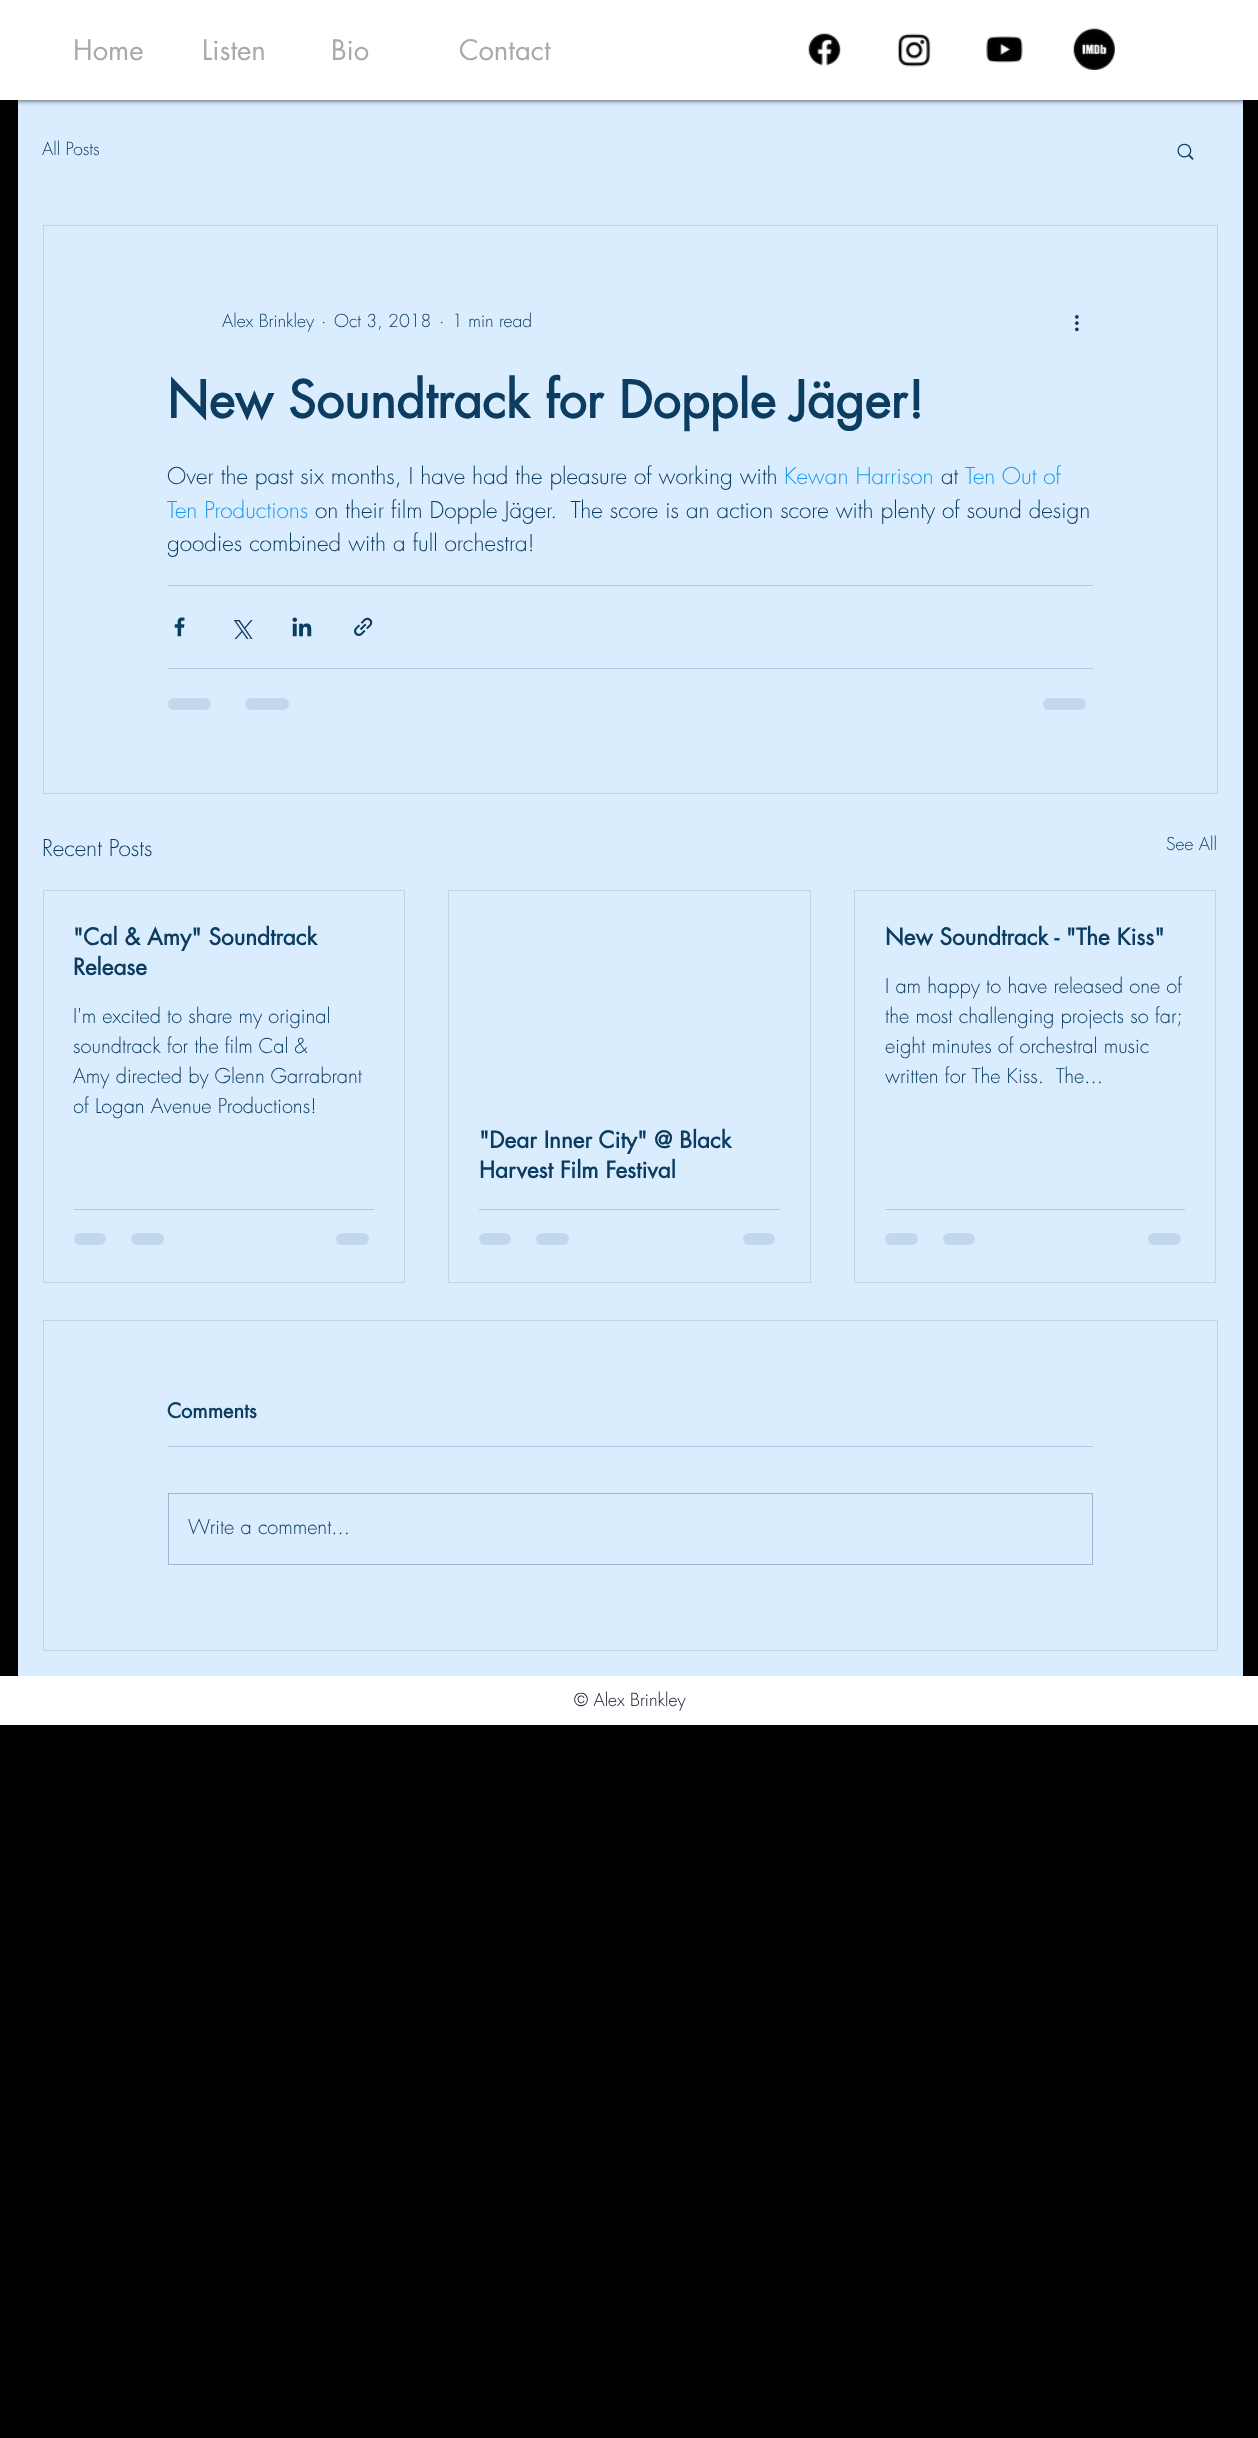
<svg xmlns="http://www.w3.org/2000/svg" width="1258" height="2438">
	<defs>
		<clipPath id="clip1"><rect x="74" y="1001" width="300" height="120" /></clipPath>
	</defs>
	<rect width="100%" height="100%" fill="#000000" />
	<rect x="18" y="100" width="1225" height="1576" fill="#DAEDFF" />
	<rect x="0" y="1" width="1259" height="100" fill="#000000" fill-opacity="0.6" filter="blur(2.5px)" />
	<rect x="0" y="0" width="1258" height="100" fill="#FFFFFF" />
	<g font-family="futura" font-size="27.5" fill="#A9A9A9">
		<text x="73" y="60">Home</text>
		<text x="202" y="60">Listen</text>
		<text x="331" y="60">Bio</text>
		<text x="459" y="60">Contact</text>
	</g>
	<image x="808" y="33" width="33" height="33" href="assets/img1.png" />
	<image x="897" y="33" width="34" height="34" href="assets/img2.png" />
	<image x="986" y="36" width="37" height="27" href="assets/img3.png" />
	<image x="1073" y="28" width="42" height="42" href="assets/img4.png" />
	<text x="42" y="155" font-family="futura" font-size="17.5" font-weight="300" fill="#0C3C60">All Posts</text>
	<image x="1177" y="143" width="17" height="17" href="assets/img5.png" />
	<rect x="43.5" y="225.5" width="1174" height="568" fill="none" stroke="#BAD4E8" />
	<g font-family="futura" font-size="17.5" font-weight="300" fill="#0C3C60">
		<text x="222" y="327">Alex Brinkley</text>
		<text x="321" y="327">·</text>
		<text x="334" y="327">Oct 3, 2018</text>
		<text x="439" y="327">·</text>
		<text x="452" y="327">1 min read</text>
	</g>
	<image x="1075" y="315" width="4" height="17" href="assets/img6.png" />
	<text x="167" y="418" font-family="futura" font-size="50" font-weight="700" fill="#0C3C60">New Soundtrack for Dopple Jäger!</text>
	<text x="167" y="484" font-family="futura" font-size="22.5" font-weight="300" fill="#0C3C60">Over the past six months, I have had the pleasure of working with</text>
	<text x="784" y="484" font-family="futura" font-size="22.5" font-weight="300" fill="#1B99E8">Kewan Harrison</text>
	<text x="941" y="484" font-family="futura" font-size="22.5" font-weight="300" fill="#0C3C60">at</text>
	<g font-family="futura" font-size="22.5" font-weight="300" fill="#1B99E8">
		<text x="965" y="484">Ten Out of</text>
		<text x="167" y="518">Ten Productions</text>
	</g>
	<g font-family="futura" font-size="22.5" font-weight="300" fill="#0C3C60">
		<text x="315" y="518" xml:space="preserve">on their film Dopple Jäger.  The score is an action score with plenty of sound design</text>
		<text x="167" y="551">goodies combined with a full orchestra!</text>
	</g>
	<rect x="168" y="585" width="925" height="1" fill="#B1CADF" />
	<image x="174" y="617" width="11" height="20" href="assets/img7.png" />
	<image x="233" y="620" width="20" height="19" href="assets/img8.png" />
	<image x="292" y="617" width="20" height="20" href="assets/img9.png" />
	<image x="354" y="617" width="19" height="19" href="assets/img10.png" />
	<rect x="168" y="668" width="925" height="1" fill="#B1CADF" />
	<rect x="168" y="698" width="43" height="12" rx="6" fill="#C1D8EC" />
	<rect x="245" y="698" width="44" height="12" rx="6" fill="#C1D8EC" />
	<rect x="1043" y="698" width="43" height="12" rx="6" fill="#C1D8EC" />
	<text x="42" y="856" font-family="futura" font-size="22.5" font-weight="300" fill="#0C3C60">Recent Posts</text>
	<text x="1166" y="850" font-family="futura" font-size="17.5" font-weight="300" fill="#0C3C60">See All</text>
	<rect x="43.5" y="890.5" width="361" height="392" fill="none" stroke="#BAD4E8" />
	<g font-family="futura" font-size="22.5" font-weight="700" fill="#0C3C60">
		<text x="73" y="945">"Cal &amp; Amy" Soundtrack</text>
		<text x="73" y="975">Release</text>
	</g>
	<g font-family="futura" font-size="20" font-weight="300" fill="#0C3C60">
		<text x="73" y="1023">I'm excited to share my original</text>
		<text x="73" y="1053">soundtrack for the film Cal &amp;</text>
		<text x="73" y="1083">Amy directed by Glenn Garrabrant</text>
	</g>
	<g clip-path="url(#clip1)">
		<text x="73" y="1113" font-family="futura" font-size="20" font-weight="300" fill="#0C3C60">of Logan Avenue Productions!</text>
	</g>
	<rect x="74" y="1209" width="300" height="1" fill="#B1CADF" />
	<rect x="74" y="1233" width="32" height="12" rx="6" fill="#C1D8EC" />
	<rect x="131" y="1233" width="33" height="12" rx="6" fill="#C1D8EC" />
	<rect x="336" y="1233" width="33" height="12" rx="6" fill="#C1D8EC" />
	<rect x="854.5" y="890.5" width="361" height="392" fill="none" stroke="#BAD4E8" />
	<text x="885" y="945" font-family="futura" font-size="22.5" font-weight="700" fill="#0C3C60">New Soundtrack - "The Kiss"</text>
	<g font-family="futura" font-size="20" font-weight="300" fill="#0C3C60">
		<text x="885" y="993">I am happy to have released one of</text>
		<text x="885" y="1023">the most challenging projects so far;</text>
		<text x="885" y="1053">eight minutes of orchestral music</text>
		<text x="885" y="1083" xml:space="preserve">written for The Kiss.  The...</text>
	</g>
	<rect x="885" y="1209" width="300" height="1" fill="#B1CADF" />
	<rect x="885" y="1233" width="33" height="12" rx="6" fill="#C1D8EC" />
	<rect x="943" y="1233" width="32" height="12" rx="6" fill="#C1D8EC" />
	<rect x="1148" y="1233" width="33" height="12" rx="6" fill="#C1D8EC" />
	<rect x="448.5" y="890.5" width="362" height="392" fill="none" stroke="#BAD4E8" />
	<g font-family="futura" font-size="22.5" font-weight="700" fill="#0C3C60">
		<text x="479" y="1148">"Dear Inner City" @ Black</text>
		<text x="479" y="1178">Harvest Film Festival</text>
	</g>
	<rect x="479" y="1209" width="301" height="1" fill="#B1CADF" />
	<rect x="479" y="1233" width="32" height="12" rx="6" fill="#C1D8EC" />
	<rect x="536" y="1233" width="33" height="12" rx="6" fill="#C1D8EC" />
	<rect x="743" y="1233" width="32" height="12" rx="6" fill="#C1D8EC" />
	<rect x="43.5" y="1320.5" width="1174" height="330" fill="none" stroke="#BAD4E8" />
	<text x="167" y="1418" font-family="futura" font-size="20" font-weight="700" fill="#0C3C60">Comments</text>
	<rect x="168" y="1446" width="925" height="1" fill="#B1CADF" />
	<rect x="168.5" y="1493.5" width="924" height="71" fill="none" stroke="#9CB8CF" />
	<text x="188" y="1534" font-family="futura" font-size="20" font-weight="300" fill="#0C3C60">Write a comment...</text>
	<rect x="0" y="1676" width="1258" height="49" fill="#FFFFFF" />
	<text x="574" y="1706" font-family="futura" font-size="17.5" font-weight="300" fill="#0D0923">© Alex Brinkley</text>
</svg>
